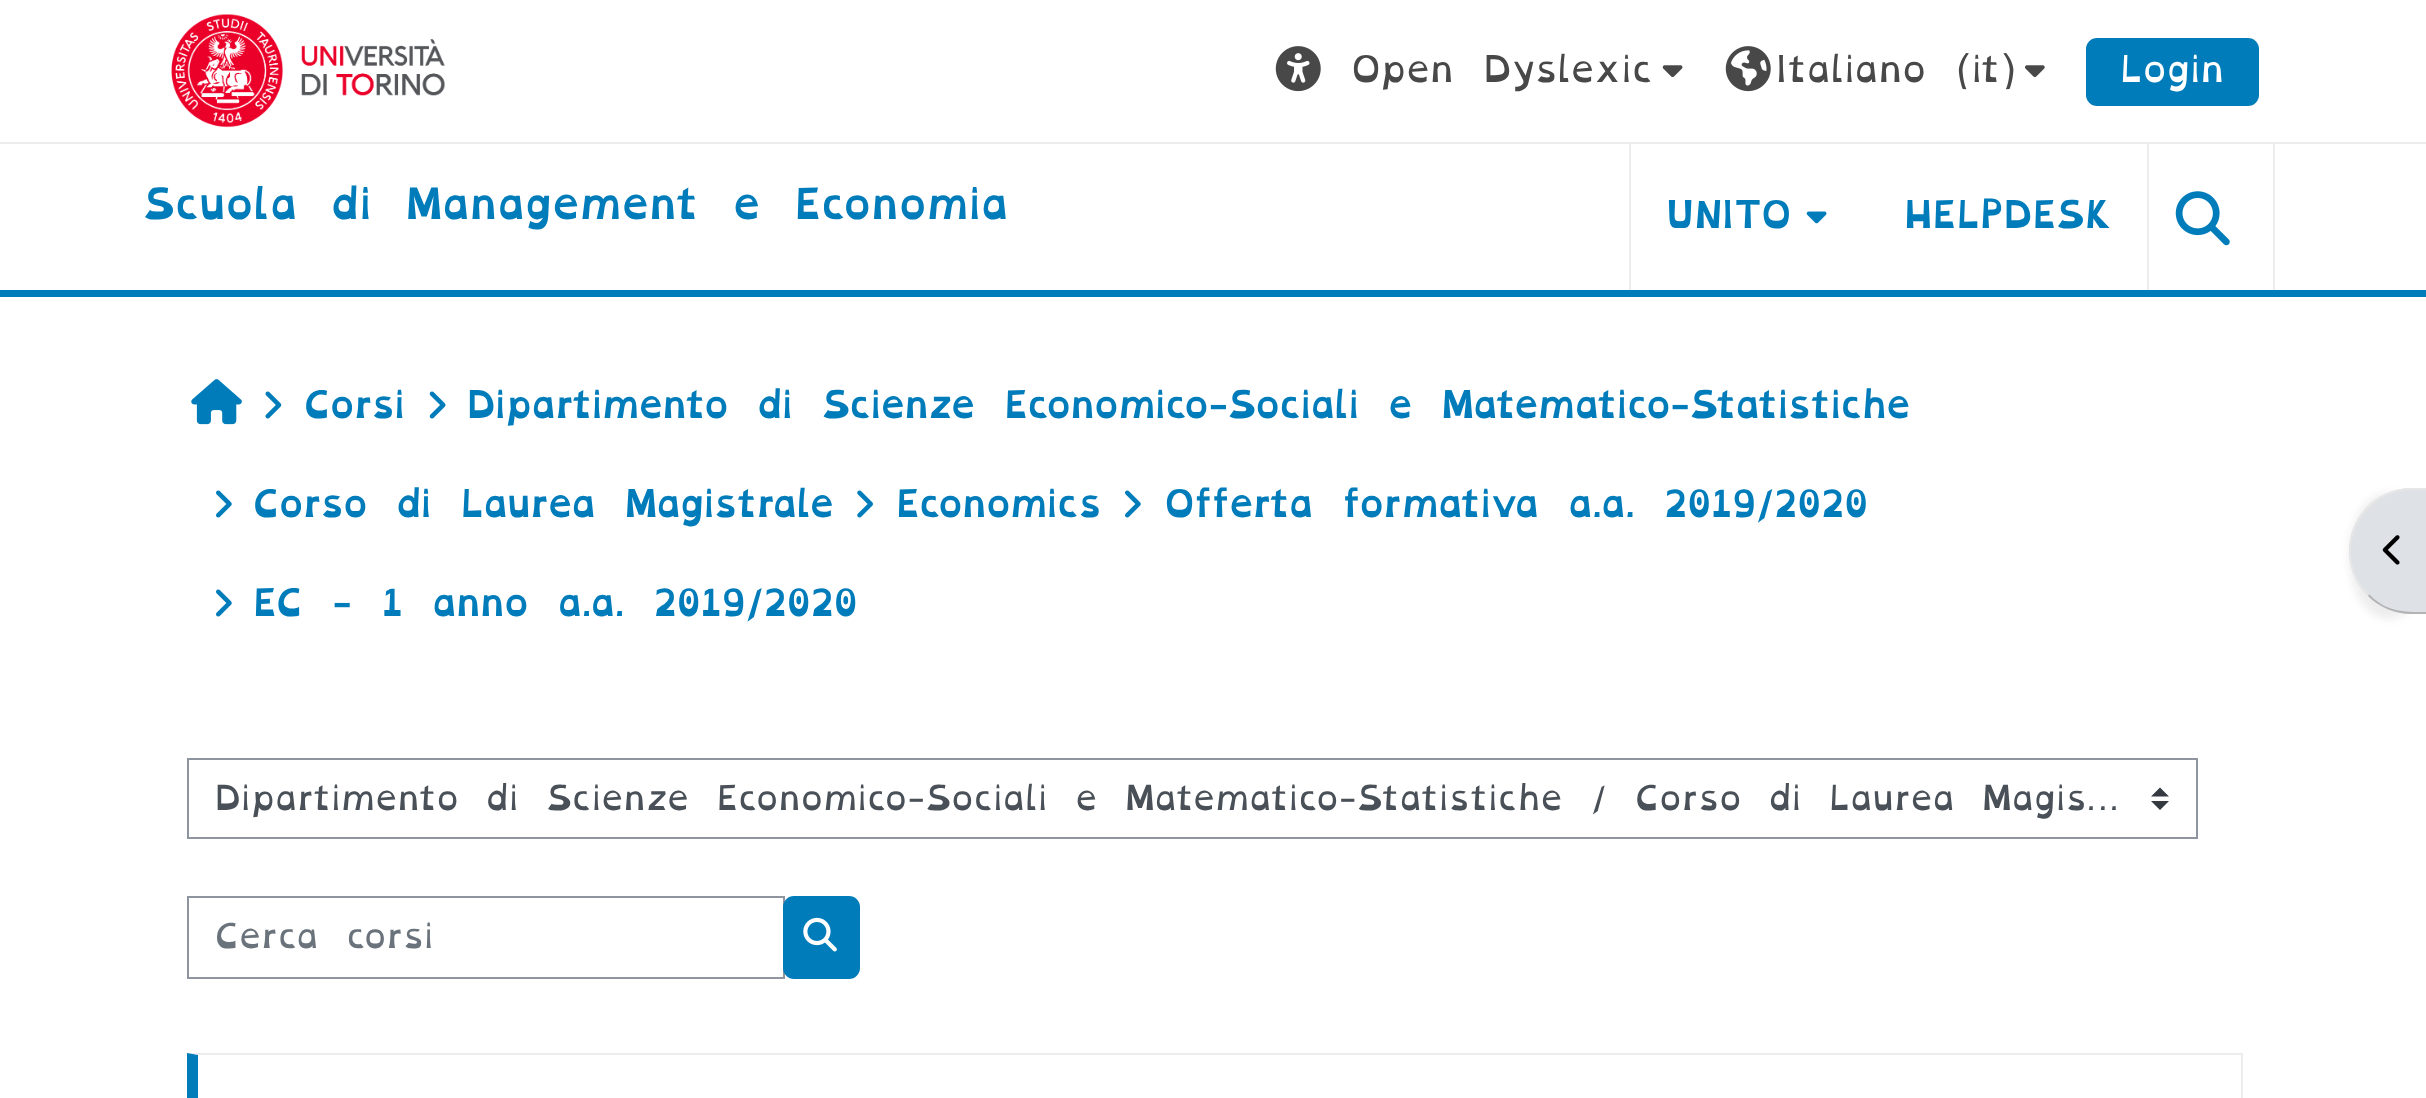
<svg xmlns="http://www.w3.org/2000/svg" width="2426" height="1098">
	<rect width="100%" height="100%" fill="#FFFFFF" />
	<rect x="0" y="290" width="2426" height="7" fill="#007CBA" />
	<rect x="0" y="142" width="2426" height="2" fill="#ECECEC" />
	<image x="171" y="14" width="274" height="114" href="assets/img1.png" />
	<image x="1275" y="46" width="46" height="46" href="assets/img2.png" />
	<text x="1351" y="82" font-family="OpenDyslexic" font-size="36" fill="#484848">Open Dyslexic</text>
	<image x="1662" y="65" width="21" height="12" href="assets/img3.png" />
	<image x="1725" y="46" width="46" height="46" href="assets/img4.png" />
	<text x="1776" y="82" font-family="OpenDyslexic" font-size="36" fill="#484848">Italiano (it)</text>
	<image x="2025" y="65" width="20" height="12" href="assets/img5.png" />
	<rect x="2086" y="38" width="173" height="68" rx="11" fill="#007CBA" />
	<text x="2120" y="82" font-family="OpenDyslexic" font-size="36" fill="#FFFFFF">Login</text>
	<text x="143" y="219" font-family="OpenDyslexic" font-size="40.5" font-weight="700" letter-spacing="0.8" fill="#007CBA">Scuola di Management e Economia</text>
	<rect x="2147" y="144" width="2" height="146" fill="#ECECEC" />
	<rect x="1629" y="144" width="2" height="146" fill="#ECECEC" />
	<text x="1666" y="228" font-family="OpenDyslexic" font-size="36" font-weight="700" letter-spacing="0.75" fill="#007CBA">UNITO</text>
	<image x="1806" y="211" width="21" height="13" href="assets/img6.png" />
	<text x="1904" y="228" font-family="OpenDyslexic" font-size="36" font-weight="700" letter-spacing="0.75" fill="#007CBA">HELPDESK</text>
	<rect x="2273" y="144" width="2" height="146" fill="#ECECEC" />
	<image x="2175" y="191" width="55" height="55" href="assets/img7.png" />
	<image x="191" y="379" width="51" height="46" href="assets/img8.png" />
	<image x="265" y="391" width="17" height="28" href="assets/img9.png" />
	<text x="304" y="418" font-family="OpenDyslexic" font-size="36" font-weight="700" fill="#007CBA">Corsi</text>
	<image x="429" y="391" width="17" height="28" href="assets/img10.png" />
	<text x="467" y="418" font-family="OpenDyslexic" font-size="36" font-weight="700" fill="#007CBA">Dipartimento di Scienze Economico-Sociali e Matematico-Statistiche</text>
	<image x="216" y="490" width="16" height="28" href="assets/img11.png" />
	<text x="253" y="517" font-family="OpenDyslexic" font-size="36" font-weight="700" fill="#007CBA">Corso di Laurea Magistrale</text>
	<image x="857" y="490" width="16" height="28" href="assets/img12.png" />
	<text x="896" y="517" font-family="OpenDyslexic" font-size="36" font-weight="700" fill="#007CBA">Economics</text>
	<image x="1125" y="490" width="16" height="28" href="assets/img11.png" />
	<text x="1164" y="517" font-family="OpenDyslexic" font-size="36" font-weight="700" fill="#007CBA">Offerta formativa a.a. 2019/2020</text>
	<image x="216" y="589" width="16" height="28" href="assets/img11.png" />
	<text x="253" y="616" font-family="OpenDyslexic" font-size="36" font-weight="700" fill="#007CBA">EC - 1 anno a.a. 2019/2020</text>
	<path d="M2160 787.5L2151 796.5H2169ZM2160 810L2151 801H2169Z" fill="#343A40" />
	<rect x="188" y="759" width="2009" height="79" fill="none" stroke="#8F959E" stroke-width="2" />
	<text x="215" y="810" font-family="OpenDyslexic" font-size="33.63" fill="#495057">Dipartimento di Scienze Economico-Sociali e Matematico-Statistiche / Corso di Laurea Magis…</text>
	<rect x="188" y="897" width="596" height="81" fill="none" stroke="#8F959E" stroke-width="2" />
	<text x="215" y="948" font-family="OpenDyslexic" font-size="33.63" fill="#6A737B">Cerca corsi</text>
	<rect x="783" y="896" width="77" height="83" rx="11" fill="#007CBA" />
	<image x="803" y="917" width="34" height="35" href="assets/img13.png" />
	<path d="M187 1053H2243L2241 1055H198Z" fill="#ECECEC" />
	<rect x="2241" y="1053" width="2" height="45" fill="#ECECEC" />
	<path d="M187 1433V1053L198 1055V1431Z" fill="#007CBA" />
	<rect x="2349" y="493" width="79" height="126" rx="63" fill="#000000" fill-opacity="0.07" filter="blur(4.5px)" />
	<path d="M2412 488H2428V614H2412C2377 614 2349 586 2349 551C2349 516 2377 488 2412 488Z" fill="#DEE2E6" />
	<path d="M2412 490C2395 490 2380 497 2369 508L2367 507C2377 496 2391 490 2406 488H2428L2426 490Z" fill="#E6E6E6" />
	<path d="M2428 614H2412C2395 614 2379 607 2368 596L2369 594C2386 612 2403 612 2426 612Z" fill="#B3B3B3" />
	<path d="M2368 596C2343 572 2343 531 2367 507L2369 508C2345 532 2345 571 2369 594Z" fill="#E6E6E6" />
	<image x="2382" y="535" width="18" height="30" href="assets/img14.png" />
</svg>
